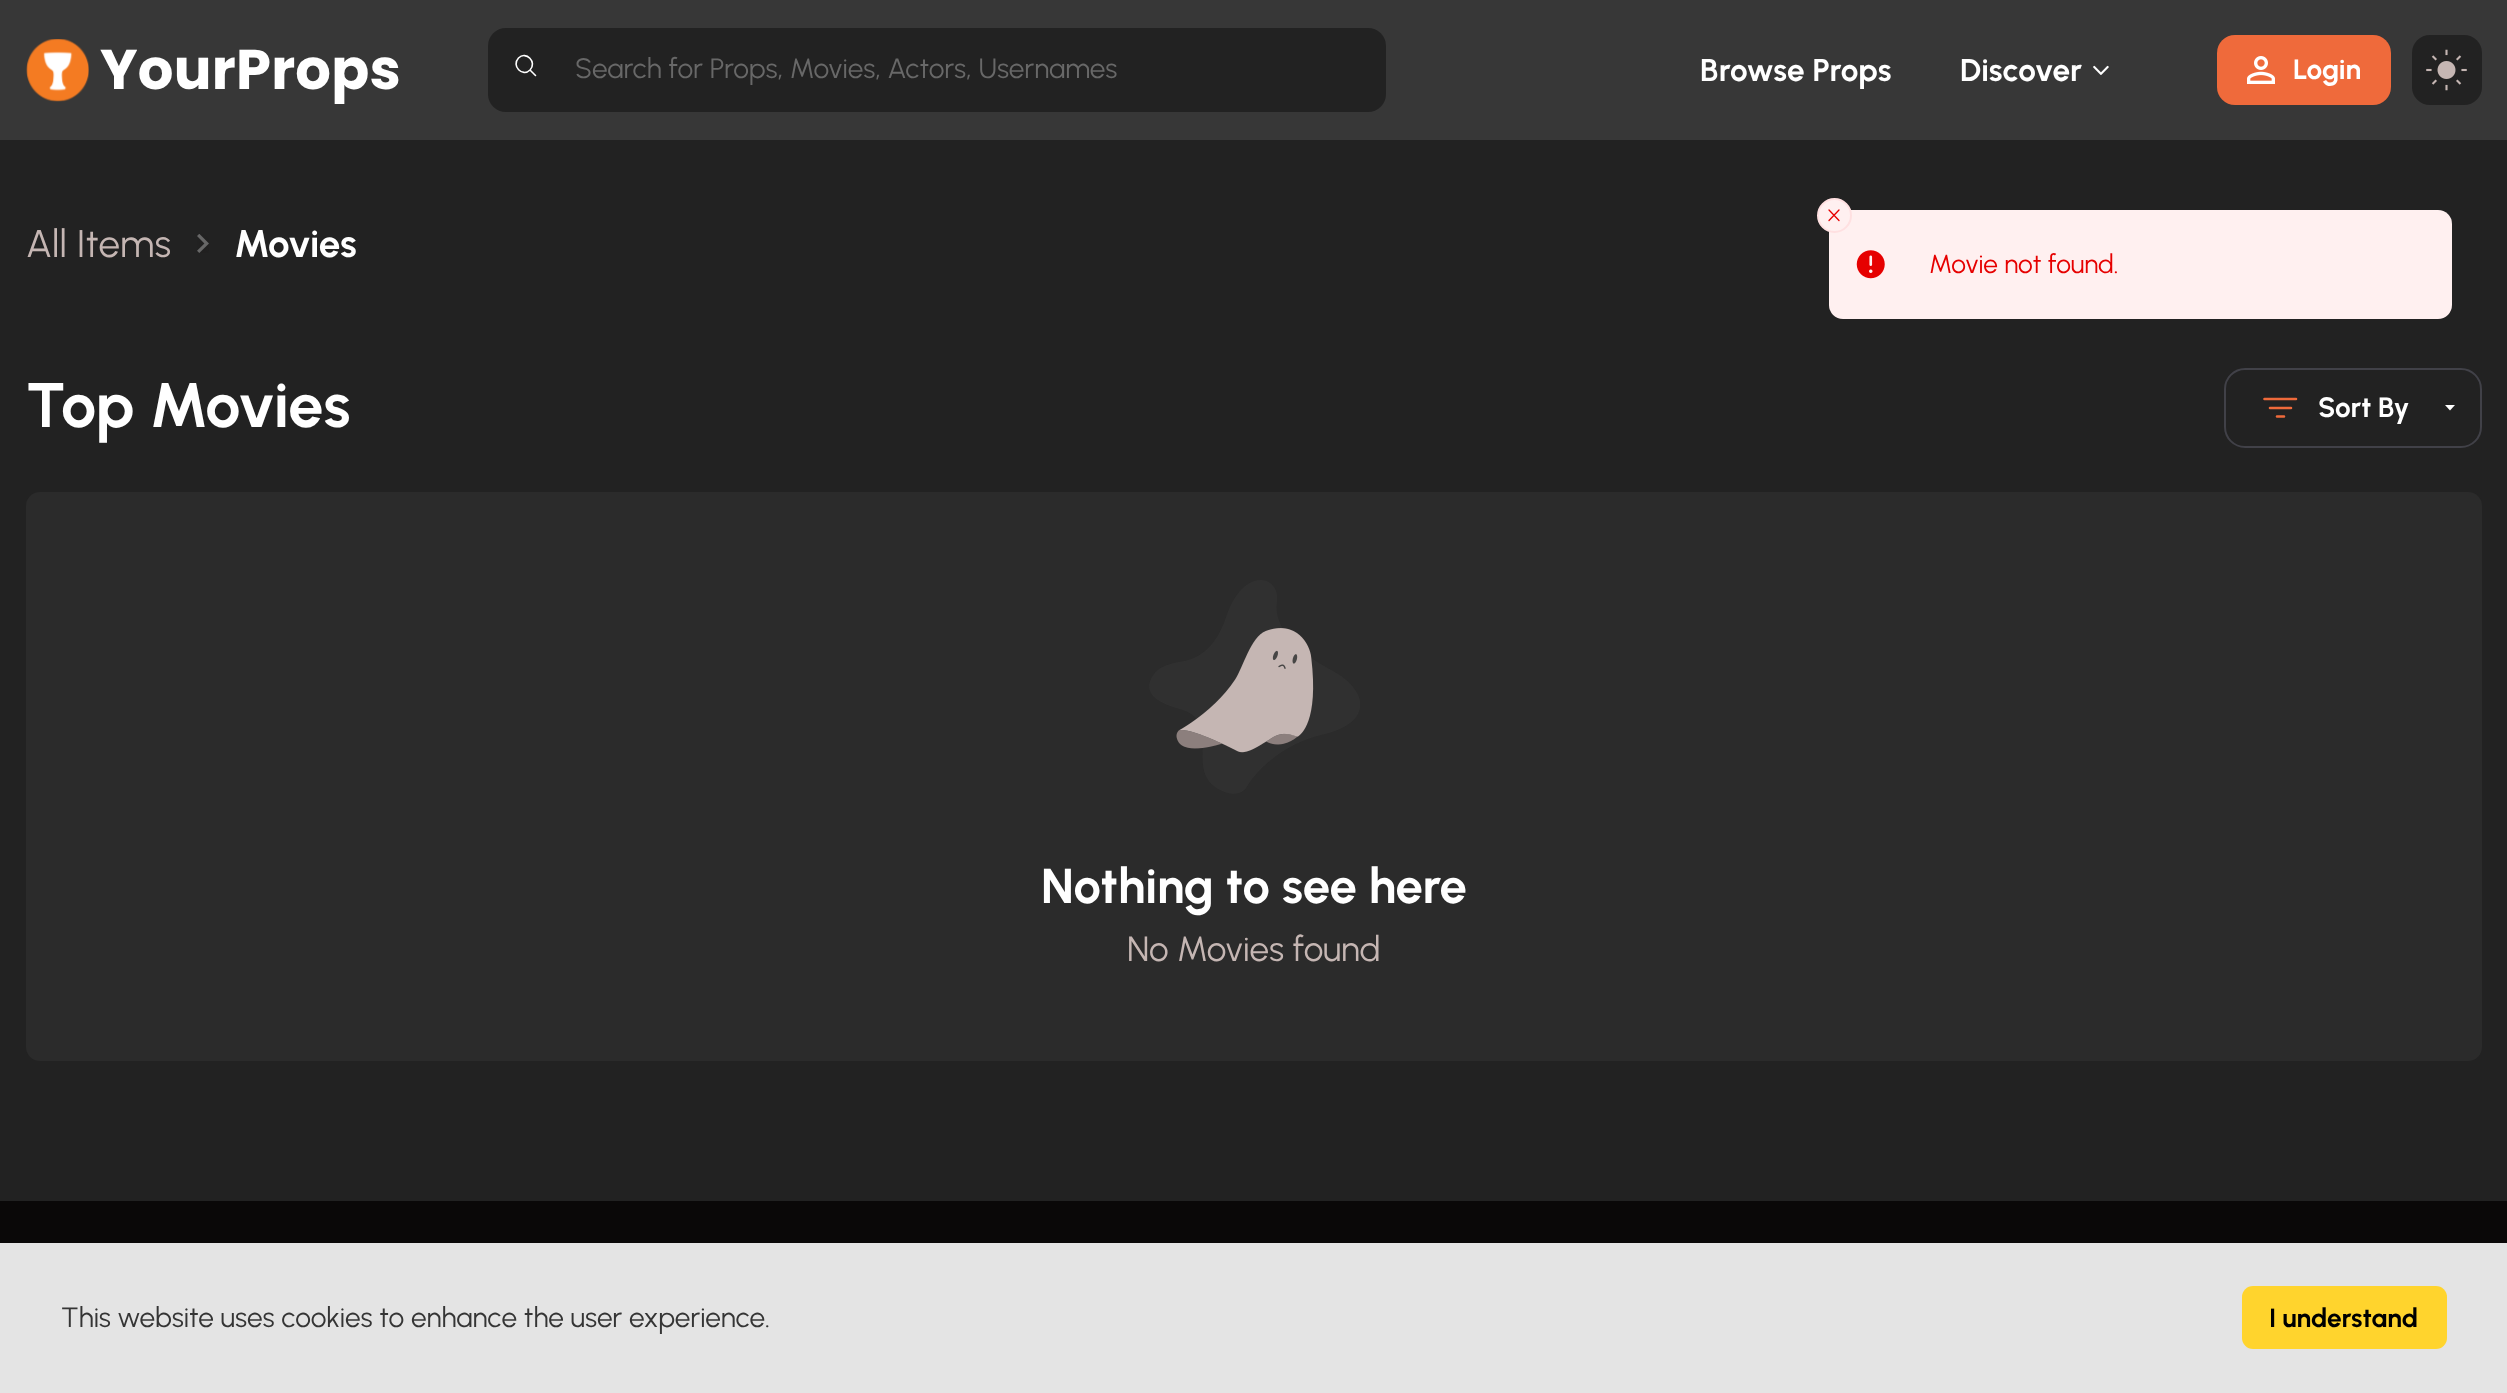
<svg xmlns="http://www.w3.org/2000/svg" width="2507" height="1393">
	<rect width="100%" height="100%" fill="#222222" />
	<rect x="0" y="0" width="2507" height="140" fill="#373737" />
	<image x="26" y="39" width="63" height="63" href="assets/img1.png" />
	<text x="100" y="89" font-family="Poppins" font-size="56" font-weight="700" letter-spacing="0.25" fill="#FFFFFF">YourProps</text>
	<rect x="488" y="28" width="898" height="84" rx="18" fill="#222222" />
	<path d="M535.5 75.5L530 70M530 70C537.5 62 526 50.5 518.5 58C511 66 522.5 77.5 530 70Z" fill="none" stroke="#FFFFFF" stroke-width="1.6" stroke-linecap="round" stroke-linejoin="round" />
	<text x="575" y="78" font-family="Urbanist" font-size="28" fill="#686868">Search for Props, Movies, Actors, Usernames</text>
	<g font-family="Urbanist" font-size="31.5" font-weight="700" letter-spacing="0.25" fill="#FFFFFF">
		<text x="1700" y="81">Browse Props</text>
		<text x="1960" y="81">Discover</text>
	</g>
	<image x="2093" y="65" width="16" height="10" href="assets/img2.png" />
	<rect x="2217" y="35" width="174" height="70" rx="18" fill="#EF6A3B" />
	<image x="2247" y="56" width="28" height="28" href="assets/img3.png" />
	<text x="2293" y="79" font-family="Urbanist" font-size="28" font-weight="700" fill="#FFFFFF">Login</text>
	<rect x="2412" y="35" width="70" height="70" rx="18" fill="#222222" />
	<image x="2426" y="49" width="41" height="42" href="assets/img4.png" />
	<text x="26" y="257" font-family="Urbanist" font-size="38.5" letter-spacing="0.25" fill="#C5B6B3">All Items</text>
	<image x="197" y="234" width="12" height="19" href="assets/img5.png" />
	<text x="234" y="257" font-family="Urbanist" font-size="38.5" font-weight="700" fill="#FFFFFF">Movies</text>
	<text x="26" y="427" font-family="Urbanist" font-size="63" font-weight="700" fill="#FFFFFF">Top Movies</text>
	<rect x="2225" y="369" width="256" height="78" rx="20" fill="none" stroke="#414148" stroke-width="2" />
	<path d="M2264.5 399H2296M2270 408H2291M2277 416.5H2284" fill="none" stroke="#EF6A3B" stroke-width="2.6" stroke-linecap="round" />
	<text x="2318" y="417" font-family="Urbanist" font-size="28" font-weight="700" fill="#FFFFFF">Sort By</text>
	<path d="M2445 405H2455L2450 410.5Z" fill="#FFFFFF" />
	<rect x="26" y="492" width="2456" height="569" rx="14" fill="#2B2B2B" />
	<image x="1149" y="580" width="211" height="214" href="assets/img6.png" />
	<text x="1041" y="903" font-family="Urbanist" font-size="49" font-weight="700" fill="#FFFFFF">Nothing to see here</text>
	<text x="1127" y="961" font-family="Urbanist" font-size="35" fill="#C5B6B3">No Movies found</text>
	<rect x="0" y="1201" width="2507" height="42" fill="#0A0808" />
	<rect x="1829" y="210" width="623" height="109" rx="14" fill="#FFF0F0" />
	<circle cx="1834.5" cy="215.5" r="16.5" fill="#FFF0F0" stroke="#FFE0E1" stroke-width="2" />
	<path d="M1839 210L1829 220.5M1829 210L1839 220.5" fill="none" stroke="#E60000" stroke-width="1.3" stroke-linecap="round" stroke-linejoin="round" />
	<image x="1856" y="250" width="29" height="29" href="assets/img7.png" />
	<text x="1929" y="273" font-family="Urbanist" font-size="26.25" fill="#E60000">Movie not found.</text>
	<rect x="0" y="1243" width="2507" height="150" fill="#E4E4E4" />
	<text x="61" y="1327" font-family="Urbanist" font-size="28" fill="#353535">This website uses cookies to enhance the user experience.</text>
	<rect x="2242" y="1286" width="205" height="63" rx="11" fill="#FFD42D" />
	<text x="2269" y="1327" font-family="Urbanist" font-size="26.25" font-weight="700" fill="#000000">I understand</text>
</svg>
